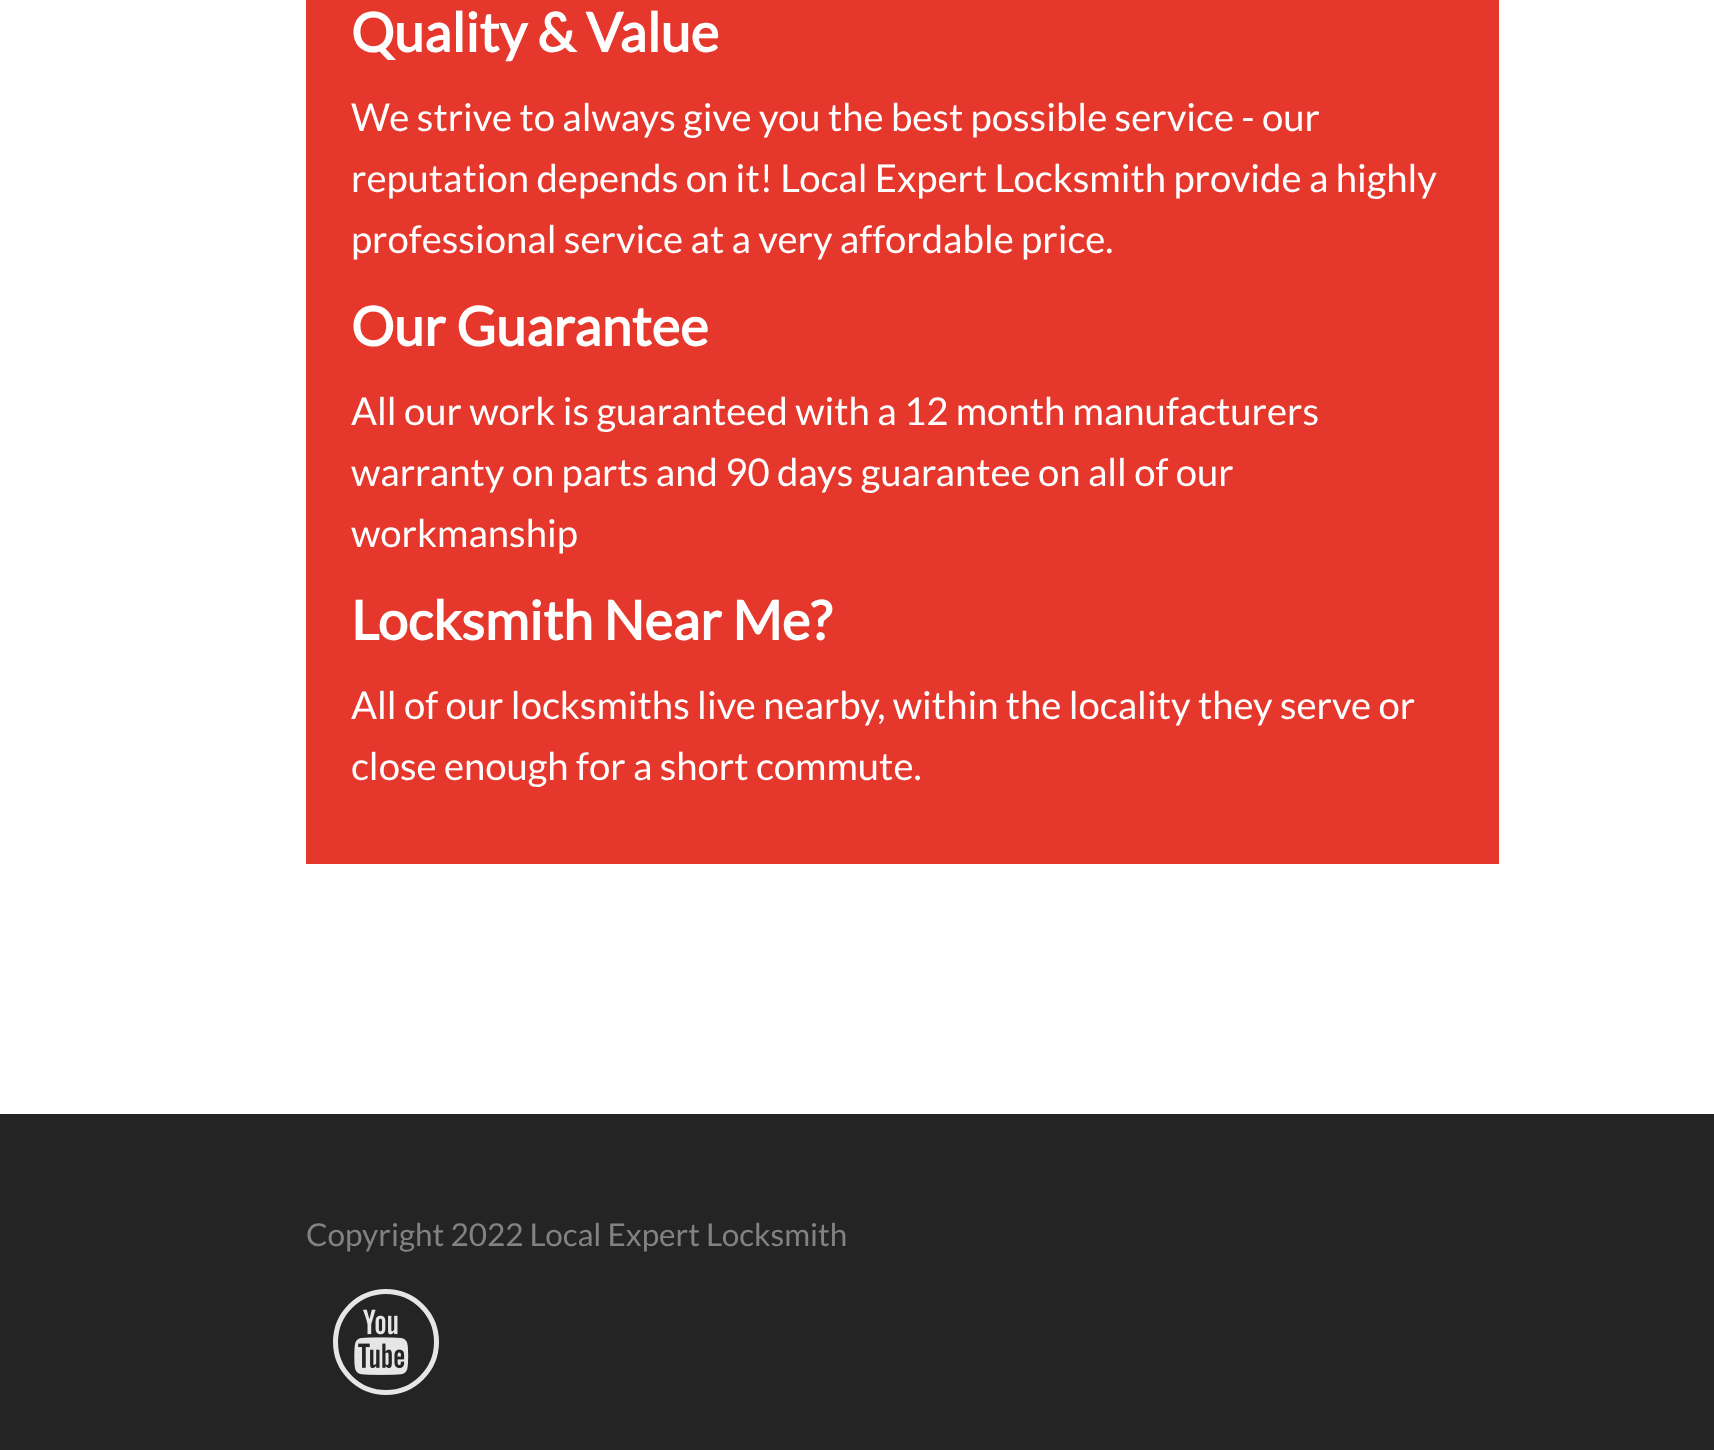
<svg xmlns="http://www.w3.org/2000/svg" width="1714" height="1450">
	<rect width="100%" height="100%" fill="#FFFFFF" />
	<rect x="306" y="0" width="1193" height="864" fill="#E5372B" />
	<text x="351" y="52" font-family="Lato" font-size="54" font-weight="700" fill="#FFFFFF">Quality &amp; Value</text>
	<g font-family="Lato" font-size="38.25" fill="#FFFFFF">
		<text x="351" y="131">We strive to always give you the best possible service - our</text>
		<text x="351" y="192">reputation depends on it! Local Expert Locksmith provide a highly</text>
		<text x="351" y="253">professional service at a very affordable price.</text>
	</g>
	<text x="351" y="346" font-family="Lato" font-size="54" font-weight="700" fill="#FFFFFF">Our Guarantee</text>
	<g font-family="Lato" font-size="38.25" fill="#FFFFFF">
		<text x="351" y="425">All our work is guaranteed with a 12 month manufacturers</text>
		<text x="351" y="486">warranty on parts and 90 days guarantee on all of our</text>
		<text x="351" y="547">workmanship</text>
	</g>
	<text x="351" y="640" font-family="Lato" font-size="54" font-weight="700" fill="#FFFFFF">Locksmith Near Me?</text>
	<g font-family="Lato" font-size="38.25" fill="#FFFFFF">
		<text x="351" y="719">All of our locksmiths live nearby, within the locality they serve or</text>
		<text x="351" y="780">close enough for a short commute.</text>
	</g>
	<rect x="0" y="1114" width="1714" height="336" fill="#242424" />
	<text x="306" y="1246" font-family="Lato" font-size="31.5" fill="#828282">Copyright 2022 Local Expert Locksmith</text>
	<circle cx="386" cy="1342" r="50.5" fill="none" stroke="#E6E6E6" stroke-width="5" />
	<image x="354" y="1309" width="55" height="66" href="assets/img1.png" />
</svg>
